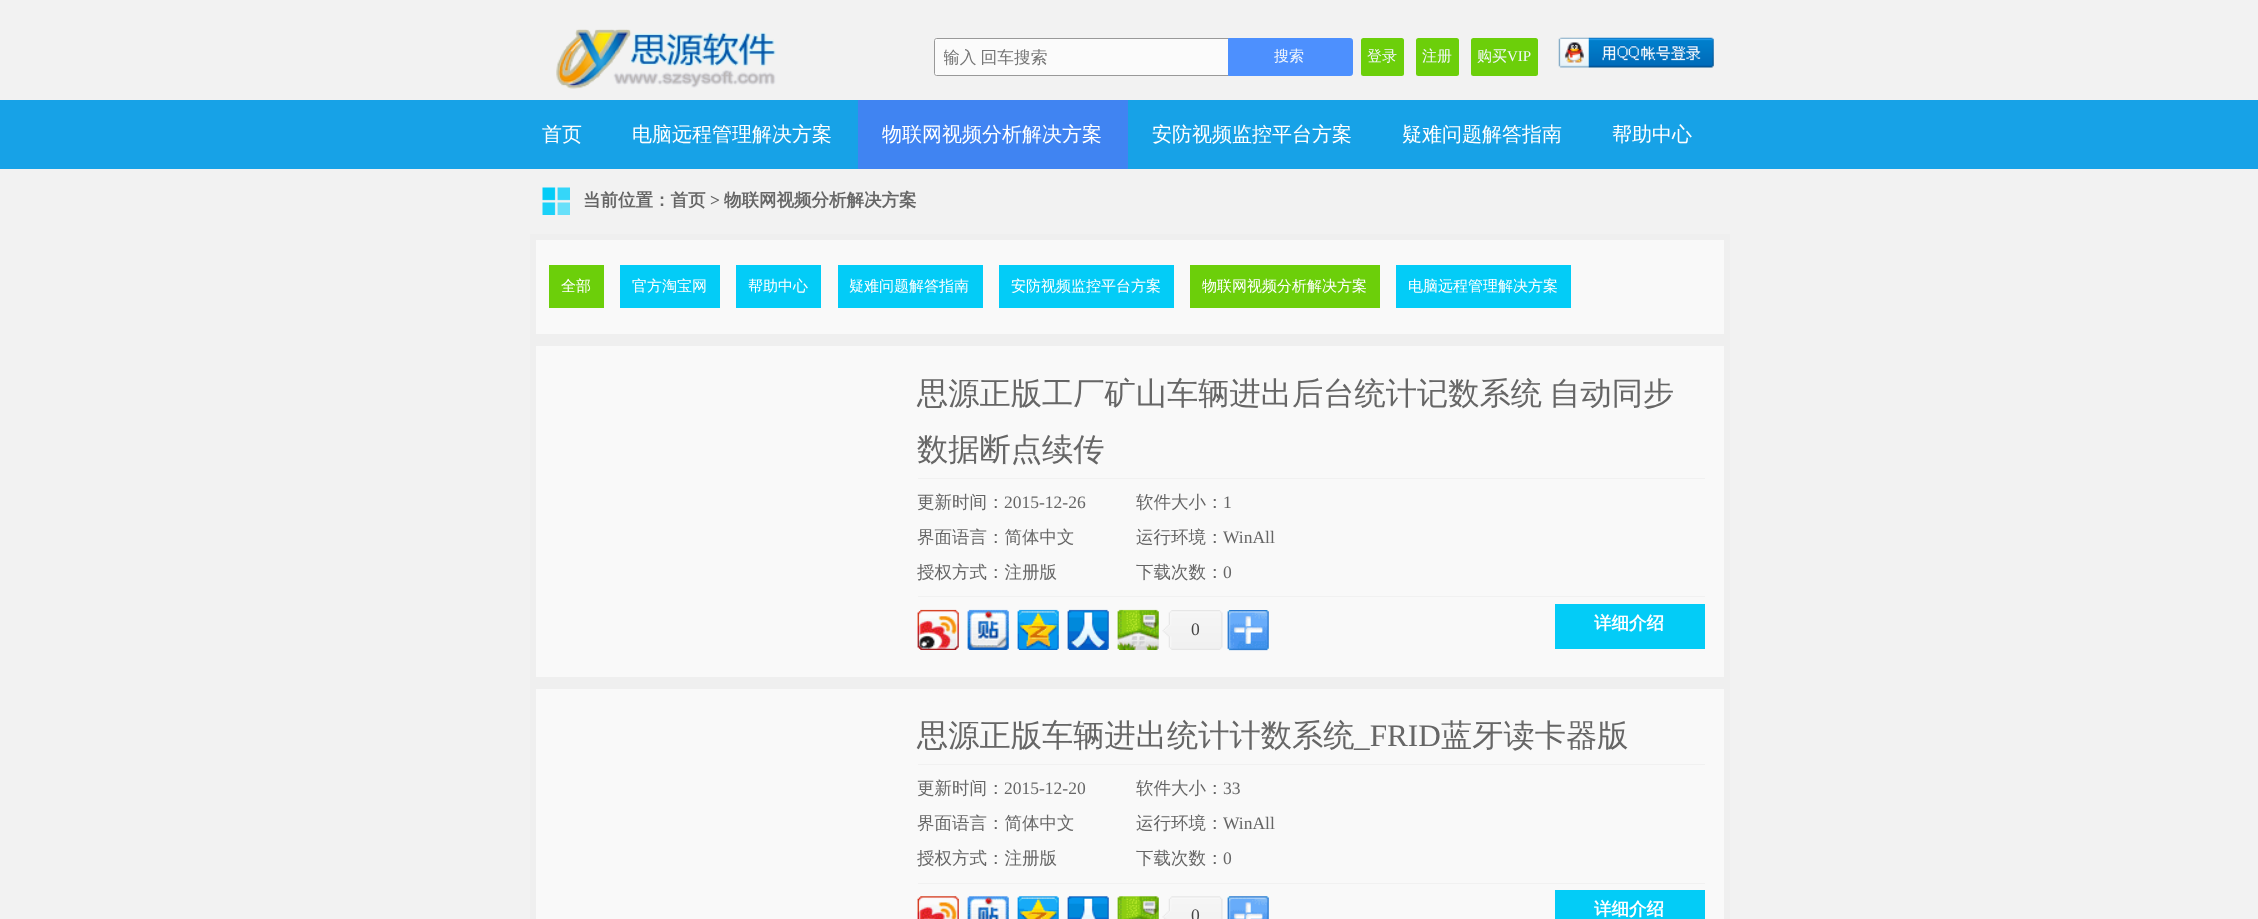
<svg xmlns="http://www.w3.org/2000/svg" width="2258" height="919">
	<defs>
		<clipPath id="clip1"><rect x="944" y="46" width="275" height="23" /></clipPath>
	</defs>
	<rect width="100%" height="100%" fill="#F2F2F2" />
	<image x="556" y="29" width="220" height="60" href="assets/img1.png" />
	<path d="M936.5 38.5H1228.5V75.5H936.5C935.5 75.5 934.5 74.5 934.5 73.5V40.5C934.5 39.5 935.5 38.5 936.5 38.5Z" fill="#FBFBFB" stroke="#999999" />
	<g clip-path="url(#clip1)">
		<text x="943" y="63" word-spacing="-1" font-family="WenQuanYi Zen Hei" font-size="16.75" font-weight="500" fill="#757575">输入 回车搜索</text>
	</g>
	<path d="M1228.5 38.5H1350.5C1351.5 38.5 1352.5 39.5 1352.5 40.5V73.5C1352.5 74.5 1351.5 75.5 1350.5 75.5H1228.5Z" fill="#4D90FE" stroke="#4D90FE" />
	<text x="1274" y="61" font-family="WenQuanYi Zen Hei" font-size="15" font-weight="500" fill="#F3F7FC">搜索</text>
	<rect x="1361" y="38" width="43" height="38" rx="2.5" fill="#6CCF0A" />
	<text x="1367" y="61" font-family="WenQuanYi Zen Hei" font-size="15" font-weight="500" fill="#F3F7FC">登录</text>
	<rect x="1416" y="38" width="43" height="38" rx="2.5" fill="#6CCF0A" />
	<text x="1422" y="61" font-family="WenQuanYi Zen Hei" font-size="15" font-weight="500" fill="#F3F7FC">注册</text>
	<rect x="1471" y="38" width="67" height="38" rx="2.5" fill="#6CCF0A" />
	<text x="1477" y="61" font-family="WenQuanYi Zen Hei" font-size="15" font-weight="500" fill="#F3F7FC">购买</text>
	<text x="1507" y="61" font-family="Liberation Serif" font-size="15" fill="#F3F7FC">VIP</text>
	<image x="1558" y="37" width="156" height="31" href="assets/img2.png" />
	<rect x="0" y="100" width="2258" height="69" fill="#17A2E7" />
	<g font-family="WenQuanYi Zen Hei" font-size="20" font-weight="500" fill="#FFFFFF">
		<text x="542" y="141">首页</text>
		<text x="632" y="141">电脑远程管理解决方案</text>
	</g>
	<rect x="858" y="100" width="270" height="69" fill="#4084F2" />
	<g font-family="WenQuanYi Zen Hei" font-size="20" font-weight="500" fill="#FFFFFF">
		<text x="882" y="141">物联网视频分析解决方案</text>
		<text x="1152" y="141">安防视频监控平台方案</text>
		<text x="1402" y="141">疑难问题解答指南</text>
		<text x="1612" y="141">帮助中心</text>
	</g>
	<image x="542" y="187" width="28" height="28" href="assets/img3.png" />
	<text x="583" y="206" font-family="WenQuanYi Zen Hei" font-size="17.5" font-weight="700" fill="#666666">当前位置：首页</text>
	<text x="710" y="206" font-family="Liberation Serif" font-size="17.5" font-weight="700" fill="#666666">&gt;</text>
	<text x="724" y="206" font-family="WenQuanYi Zen Hei" font-size="17.5" font-weight="700" fill="#666666">物联网视频分析解决方案</text>
	<rect x="533" y="237" width="1194" height="100" fill="#F9F9F9" stroke="#EFEFEF" stroke-width="6" />
	<rect x="549" y="265" width="55" height="43" fill="#6CCF0A" />
	<text x="561" y="291" font-family="WenQuanYi Zen Hei" font-size="15" font-weight="500" fill="#FFFFFF">全部</text>
	<rect x="620" y="265" width="100" height="43" fill="#03CCF7" />
	<text x="632" y="291" font-family="WenQuanYi Zen Hei" font-size="15" font-weight="500" fill="#FFFFFF">官方淘宝网</text>
	<rect x="736" y="265" width="85" height="43" fill="#03CCF7" />
	<text x="748" y="291" font-family="WenQuanYi Zen Hei" font-size="15" font-weight="500" fill="#FFFFFF">帮助中心</text>
	<rect x="838" y="265" width="145" height="43" fill="#03CCF7" />
	<text x="849" y="291" font-family="WenQuanYi Zen Hei" font-size="15" font-weight="500" fill="#FFFFFF">疑难问题解答指南</text>
	<rect x="999" y="265" width="175" height="43" fill="#03CCF7" />
	<text x="1011" y="291" font-family="WenQuanYi Zen Hei" font-size="15" font-weight="500" fill="#FFFFFF">安防视频监控平台方案</text>
	<rect x="1190" y="265" width="190" height="43" fill="#6CCF0A" />
	<text x="1202" y="291" font-family="WenQuanYi Zen Hei" font-size="15" font-weight="500" fill="#FFFFFF">物联网视频分析解决方案</text>
	<rect x="1396" y="265" width="175" height="43" fill="#03CCF7" />
	<text x="1408" y="291" font-family="WenQuanYi Zen Hei" font-size="15" font-weight="500" fill="#FFFFFF">电脑远程管理解决方案</text>
	<rect x="533" y="343" width="1194" height="337" fill="#F9F9F9" stroke="#EFEFEF" stroke-width="6" />
	<g font-family="WenQuanYi Zen Hei" font-size="31.25" font-weight="500" fill="#666666">
		<text x="917" y="404" word-spacing="-2">思源正版工厂矿山车辆进出后台统计记数系统 自动同步</text>
		<text x="917" y="460">数据断点续传</text>
	</g>
	<rect x="918" y="478" width="787" height="1" fill="#F1F1F1" />
	<text x="917" y="508" font-family="WenQuanYi Zen Hei" font-size="17.5" font-weight="500" fill="#666666">更新时间：</text>
	<text x="1004" y="508" font-family="Liberation Serif" font-size="17.5" fill="#666666">2015-12-26</text>
	<text x="1136" y="508" font-family="WenQuanYi Zen Hei" font-size="17.5" font-weight="500" fill="#666666">软件大小：</text>
	<text x="1223" y="508" font-family="Liberation Serif" font-size="17.5" fill="#666666">1</text>
	<g font-family="WenQuanYi Zen Hei" font-size="17.5" font-weight="500" fill="#666666">
		<text x="917" y="543">界面语言：简体中文</text>
		<text x="1136" y="543">运行环境：</text>
	</g>
	<text x="1223" y="543" font-family="Liberation Serif" font-size="17.5" fill="#666666">WinAll</text>
	<g font-family="WenQuanYi Zen Hei" font-size="17.5" font-weight="500" fill="#666666">
		<text x="917" y="578">授权方式：注册版</text>
		<text x="1136" y="578">下载次数：</text>
	</g>
	<text x="1223" y="578" font-family="Liberation Serif" font-size="17.5" fill="#666666">0</text>
	<rect x="918" y="596" width="787" height="1" fill="#F1F1F1" />
	<image x="917" y="609" width="42" height="41" href="assets/img4.png" />
	<image x="967" y="609" width="42" height="41" href="assets/img5.png" />
	<image x="1017" y="609" width="42" height="41" href="assets/img6.png" />
	<image x="1067" y="609" width="42" height="41" href="assets/img7.png" />
	<image x="1117" y="609" width="42" height="41" href="assets/img8.png" />
	<image x="1162" y="610" width="61" height="40" href="assets/img9.png" />
	<text x="1191" y="635" font-family="Liberation Serif" font-size="17.5" fill="#454545">0</text>
	<image x="1227" y="610" width="42" height="41" href="assets/img10.png" />
	<rect x="1555" y="604" width="150" height="45" fill="#03CCF7" />
	<text x="1594" y="629" font-family="WenQuanYi Zen Hei" font-size="17.5" font-weight="700" fill="#FFFFFF">详细介绍</text>
	<rect x="533" y="686" width="1194" height="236" fill="#F9F9F9" stroke="#EFEFEF" stroke-width="6" />
	<text x="917" y="746" font-family="WenQuanYi Zen Hei" font-size="31.25" font-weight="500" fill="#666666">思源正版车辆进出统计计数系统</text>
	<text x="1354" y="746" font-family="Liberation Serif" font-size="31.25" fill="#666666">_FRID</text>
	<text x="1441" y="746" font-family="WenQuanYi Zen Hei" font-size="31.25" font-weight="500" fill="#666666">蓝牙读卡器版</text>
	<rect x="918" y="764" width="787" height="1" fill="#F1F1F1" />
	<text x="917" y="794" font-family="WenQuanYi Zen Hei" font-size="17.5" font-weight="500" fill="#666666">更新时间：</text>
	<text x="1004" y="794" font-family="Liberation Serif" font-size="17.5" fill="#666666">2015-12-20</text>
	<text x="1136" y="794" font-family="WenQuanYi Zen Hei" font-size="17.5" font-weight="500" fill="#666666">软件大小：</text>
	<text x="1223" y="794" font-family="Liberation Serif" font-size="17.5" fill="#666666">33</text>
	<g font-family="WenQuanYi Zen Hei" font-size="17.5" font-weight="500" fill="#666666">
		<text x="917" y="829">界面语言：简体中文</text>
		<text x="1136" y="829">运行环境：</text>
	</g>
	<text x="1223" y="829" font-family="Liberation Serif" font-size="17.5" fill="#666666">WinAll</text>
	<g font-family="WenQuanYi Zen Hei" font-size="17.5" font-weight="500" fill="#666666">
		<text x="917" y="864">授权方式：注册版</text>
		<text x="1136" y="864">下载次数：</text>
	</g>
	<text x="1223" y="864" font-family="Liberation Serif" font-size="17.5" fill="#666666">0</text>
	<rect x="918" y="883" width="787" height="1" fill="#F1F1F1" />
	<image x="917" y="896" width="42" height="23" href="assets/img11.png" />
	<image x="967" y="896" width="42" height="23" href="assets/img12.png" />
	<image x="1017" y="896" width="42" height="23" href="assets/img13.png" />
	<image x="1067" y="896" width="42" height="23" href="assets/img14.png" />
	<image x="1117" y="896" width="42" height="23" href="assets/img15.png" />
	<image x="1162" y="896" width="61" height="23" href="assets/img16.png" />
	<text x="1191" y="921" font-family="Liberation Serif" font-size="17.5" fill="#454545">0</text>
	<image x="1227" y="896" width="42" height="23" href="assets/img17.png" />
	<rect x="1555" y="890" width="150" height="29" fill="#03CCF7" />
	<text x="1594" y="915" font-family="WenQuanYi Zen Hei" font-size="17.5" font-weight="700" fill="#FFFFFF">详细介绍</text>
</svg>
